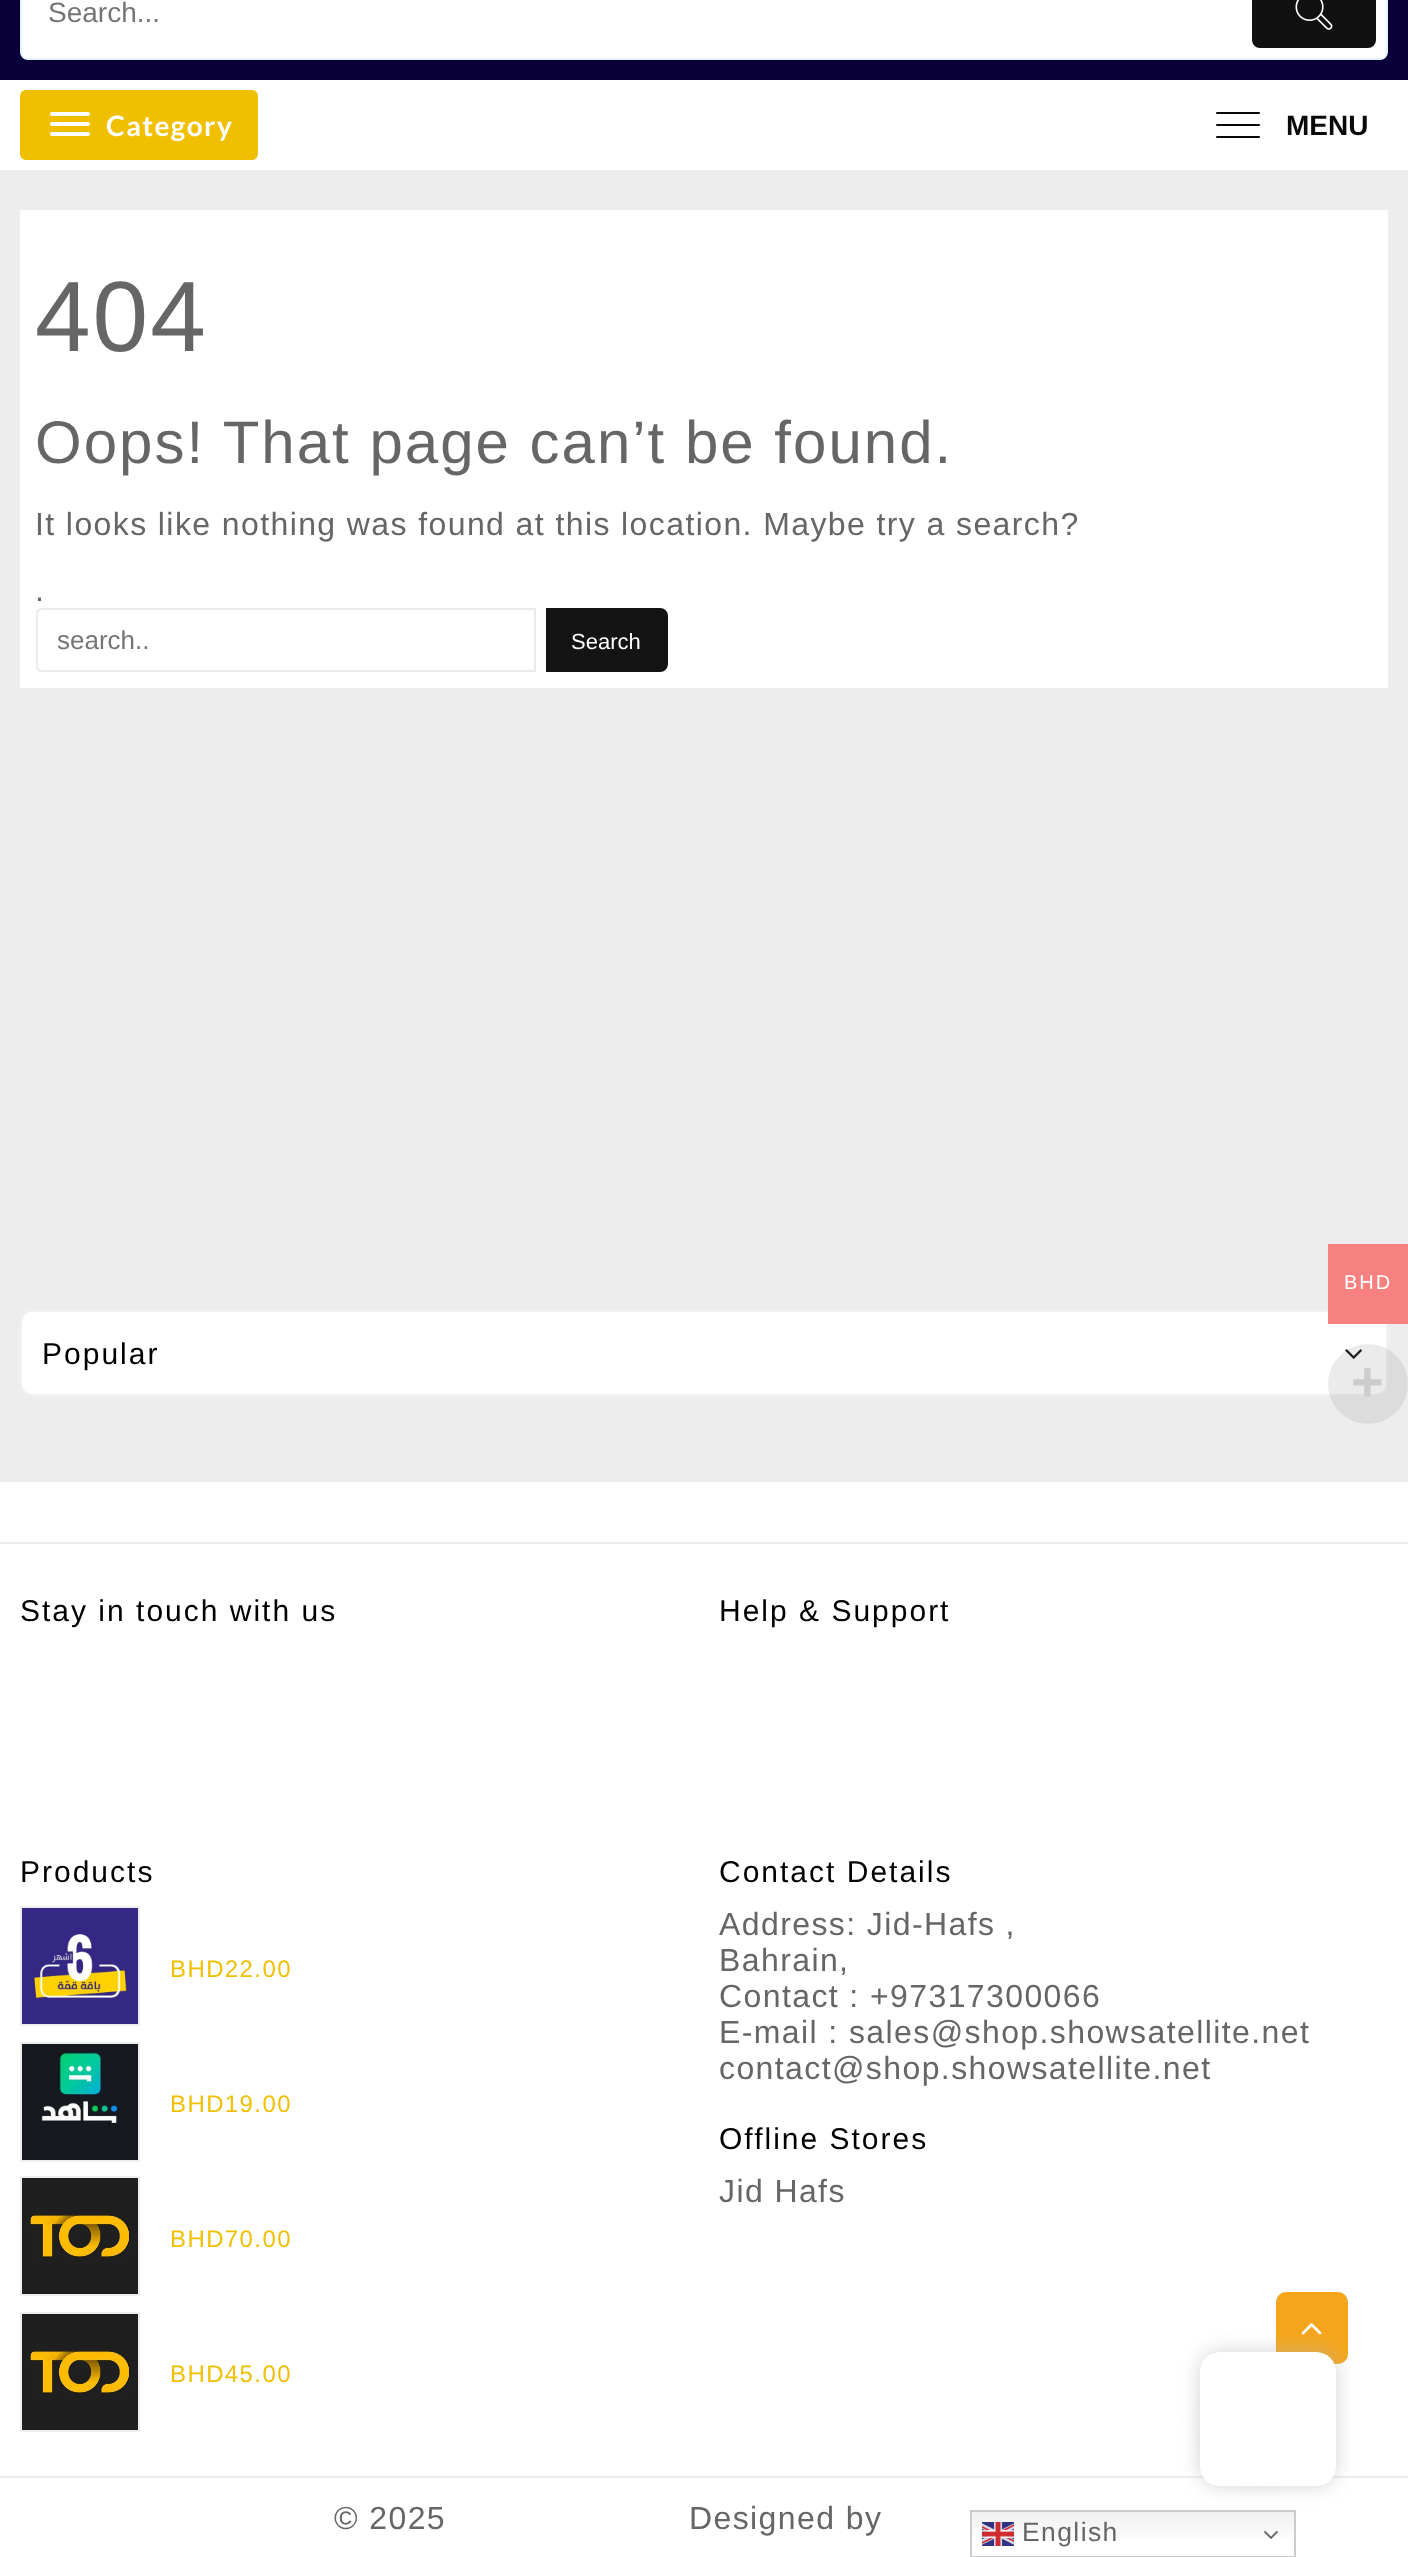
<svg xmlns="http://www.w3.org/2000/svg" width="1408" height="2557">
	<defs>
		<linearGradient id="g1" gradientUnits="userSpaceOnUse" x1="1133" y1="2510" x2="1133" y2="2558"><stop offset="0" stop-color="#EFEFEF" /><stop offset="0.7" stop-color="#FFFFFF" /></linearGradient>
	</defs>
	<rect width="100%" height="100%" fill="#EDEDED" />
	<rect x="0" y="0" width="1408" height="80" fill="#09003A" />
	<rect x="21" y="-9" width="1366" height="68" rx="7" fill="#FFFFFF" stroke="#E7F5FF" stroke-width="2" />
	<text x="48" y="22" font-family="Liberation Sans" font-size="28" fill="#757575">Search...</text>
	<rect x="1252" y="-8" width="124" height="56" rx="8" fill="#111111" />
	<image x="1295" y="0" width="38" height="30" href="assets/img1.png" />
	<rect x="0" y="80" width="1408" height="90" fill="#FFFFFF" />
	<rect x="20" y="90" width="238" height="70" rx="6" fill="#EFBF00" />
	<rect x="50" y="112" width="40" height="4" rx="2" fill="#FFFFFF" />
	<rect x="50" y="122" width="40" height="4" rx="2" fill="#FFFFFF" />
	<rect x="50" y="132" width="40" height="4" rx="2" fill="#FFFFFF" />
	<text x="106" y="136" font-family="Lato" font-size="28" font-weight="700" letter-spacing="1.4" fill="#FFFFFF">Category</text>
	<rect x="1216" y="112" width="44" height="2" rx="1" fill="#090909" />
	<rect x="1216" y="124" width="44" height="2" rx="1" fill="#090909" />
	<rect x="1216" y="136" width="44" height="2" rx="1" fill="#090909" />
	<text x="1286" y="135" font-family="Liberation Sans" font-size="28" font-weight="700" fill="#090909">MENU</text>
	<rect x="20" y="210" width="1368" height="478" fill="#FFFFFF" />
	<text x="35" y="351" font-family="Liberation Sans" font-size="100" letter-spacing="2" fill="#666666">404</text>
	<text x="35" y="463" font-family="Liberation Sans" font-size="60" letter-spacing="2" fill="#666666">Oops! That page can’t be found.</text>
	<g font-family="Liberation Sans" font-size="32" letter-spacing="1.4" fill="#666666">
		<text x="35" y="535">It looks like nothing was found at this location. Maybe try a search?</text>
		<text x="35" y="601">.</text>
	</g>
	<path d="M42 609H535V671H42C39 671 37 669 37 666V614C37 611 39 609 42 609Z" fill="none" stroke="#EAEAEA" stroke-width="2" />
	<text x="57" y="649" font-family="Liberation Sans" font-size="26" fill="#757575">search..</text>
	<path d="M547 609H660C664 609 667 612 667 616V664C667 668 664 671 660 671H547Z" fill="#141415" stroke="#141415" stroke-width="2" />
	<text x="571" y="649" font-family="Liberation Sans" font-size="22" fill="#FFFFFF">Search</text>
	<rect x="21" y="1311" width="1366" height="84" rx="11" fill="#FFFFFF" stroke="#F1F1F1" stroke-width="2" />
	<text x="42" y="1364" font-family="Liberation Sans" font-size="30" letter-spacing="2" fill="#000000">Popular</text>
	<image x="1345" y="1349" width="17" height="10" href="assets/img2.png" />
	<rect x="0" y="1482" width="1408" height="60" fill="#FFFFFF" />
	<rect x="0" y="1544" width="1408" height="932" fill="#FFFFFF" />
	<g font-family="Liberation Sans" font-size="30" letter-spacing="2" fill="#000000">
		<text x="20" y="1621">Stay in touch with us</text>
		<text x="719" y="1621">Help &amp; Support</text>
		<text x="20" y="1882">Products</text>
	</g>
	<rect x="21" y="1907" width="118" height="118" fill="none" stroke="#EEEEEE" stroke-width="2" />
	<image x="22" y="1908" width="116" height="116" href="assets/img3.png" />
	<text x="170" y="1977" font-family="Liberation Sans" font-size="24" letter-spacing="1.4" fill="#EFBF00">BHD22.00</text>
	<rect x="21" y="2043" width="118" height="118" fill="none" stroke="#EEEEEE" stroke-width="2" />
	<image x="22" y="2044" width="116" height="116" href="assets/img4.png" />
	<text x="170" y="2112" font-family="Liberation Sans" font-size="24" letter-spacing="1.4" fill="#EFBF00">BHD19.00</text>
	<rect x="21" y="2177" width="118" height="118" fill="none" stroke="#EEEEEE" stroke-width="2" />
	<image x="22" y="2178" width="116" height="116" href="assets/img5.png" />
	<text x="170" y="2247" font-family="Liberation Sans" font-size="24" letter-spacing="1.4" fill="#EFBF00">BHD70.00</text>
	<rect x="21" y="2313" width="118" height="118" fill="none" stroke="#EEEEEE" stroke-width="2" />
	<image x="22" y="2314" width="116" height="116" href="assets/img5.png" />
	<text x="170" y="2382" font-family="Liberation Sans" font-size="24" letter-spacing="1.4" fill="#EFBF00">BHD45.00</text>
	<text x="719" y="1882" font-family="Liberation Sans" font-size="30" letter-spacing="2" fill="#000000">Contact Details</text>
	<g font-family="Liberation Sans" font-size="32" letter-spacing="1.4" fill="#666666">
		<text x="719" y="1935">Address: Jid-Hafs ,</text>
		<text x="719" y="1971">Bahrain,</text>
		<text x="719" y="2007">Contact : +97317300066</text>
		<text x="719" y="2043">E-mail : sales@shop.showsatellite.net</text>
		<text x="719" y="2079">contact@shop.showsatellite.net</text>
	</g>
	<text x="719" y="2149" font-family="Liberation Sans" font-size="30" letter-spacing="2" fill="#000000">Offline Stores</text>
	<text x="719" y="2202" font-family="Liberation Sans" font-size="32" letter-spacing="1.4" fill="#666666">Jid Hafs</text>
	<rect x="0" y="2478" width="1408" height="79" fill="#FFFFFF" />
	<g font-family="Liberation Sans" font-size="32" letter-spacing="1.4" fill="#666666">
		<text x="334" y="2529">© 2025</text>
		<text x="689" y="2529">Designed by</text>
	</g>
	<rect x="1328" y="1244" width="80" height="80" fill="#F78080" />
	<text x="1344" y="1289" font-family="Liberation Sans" font-size="20" letter-spacing="2" fill="#FFFFFF">BHD</text>
	<circle cx="1368" cy="1384" r="40" fill="#999999" fill-opacity="0.2" />
	<text x="1351" y="1401" font-family="Liberation Sans" font-size="56" font-weight="700" letter-spacing="1.4" fill="#CCCCCC">+</text>
	<rect x="1276" y="2292" width="72" height="72" rx="10" fill="#F4A51C" />
	<image x="1301" y="2323" width="21" height="12" href="assets/img6.png" />
	<rect x="1192" y="2356" width="136" height="134" rx="67" fill="#DDDDDD" fill-opacity="0.1" filter="blur(6px)" />
	<rect x="972" y="2512" width="322" height="26" fill="url(#g1)" />
	<rect x="971" y="2511" width="324" height="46" fill="none" stroke="#CCCCCC" stroke-width="2" />
	<rect x="1200" y="2352" width="136" height="134" rx="20" fill="#B7B7B7" fill-opacity="0.6" filter="blur(10px)" />
	<rect x="1200" y="2352" width="136" height="134" rx="20" fill="#FFFFFF" />
	<image x="982" y="2522" width="32" height="24" href="assets/img7.png" />
	<text x="1022" y="2541" font-family="Liberation Sans" font-size="26.5" letter-spacing="1.4" fill="#666666">English</text>
	<image x="1264" y="2531" width="14" height="8" href="assets/img8.png" />
</svg>
